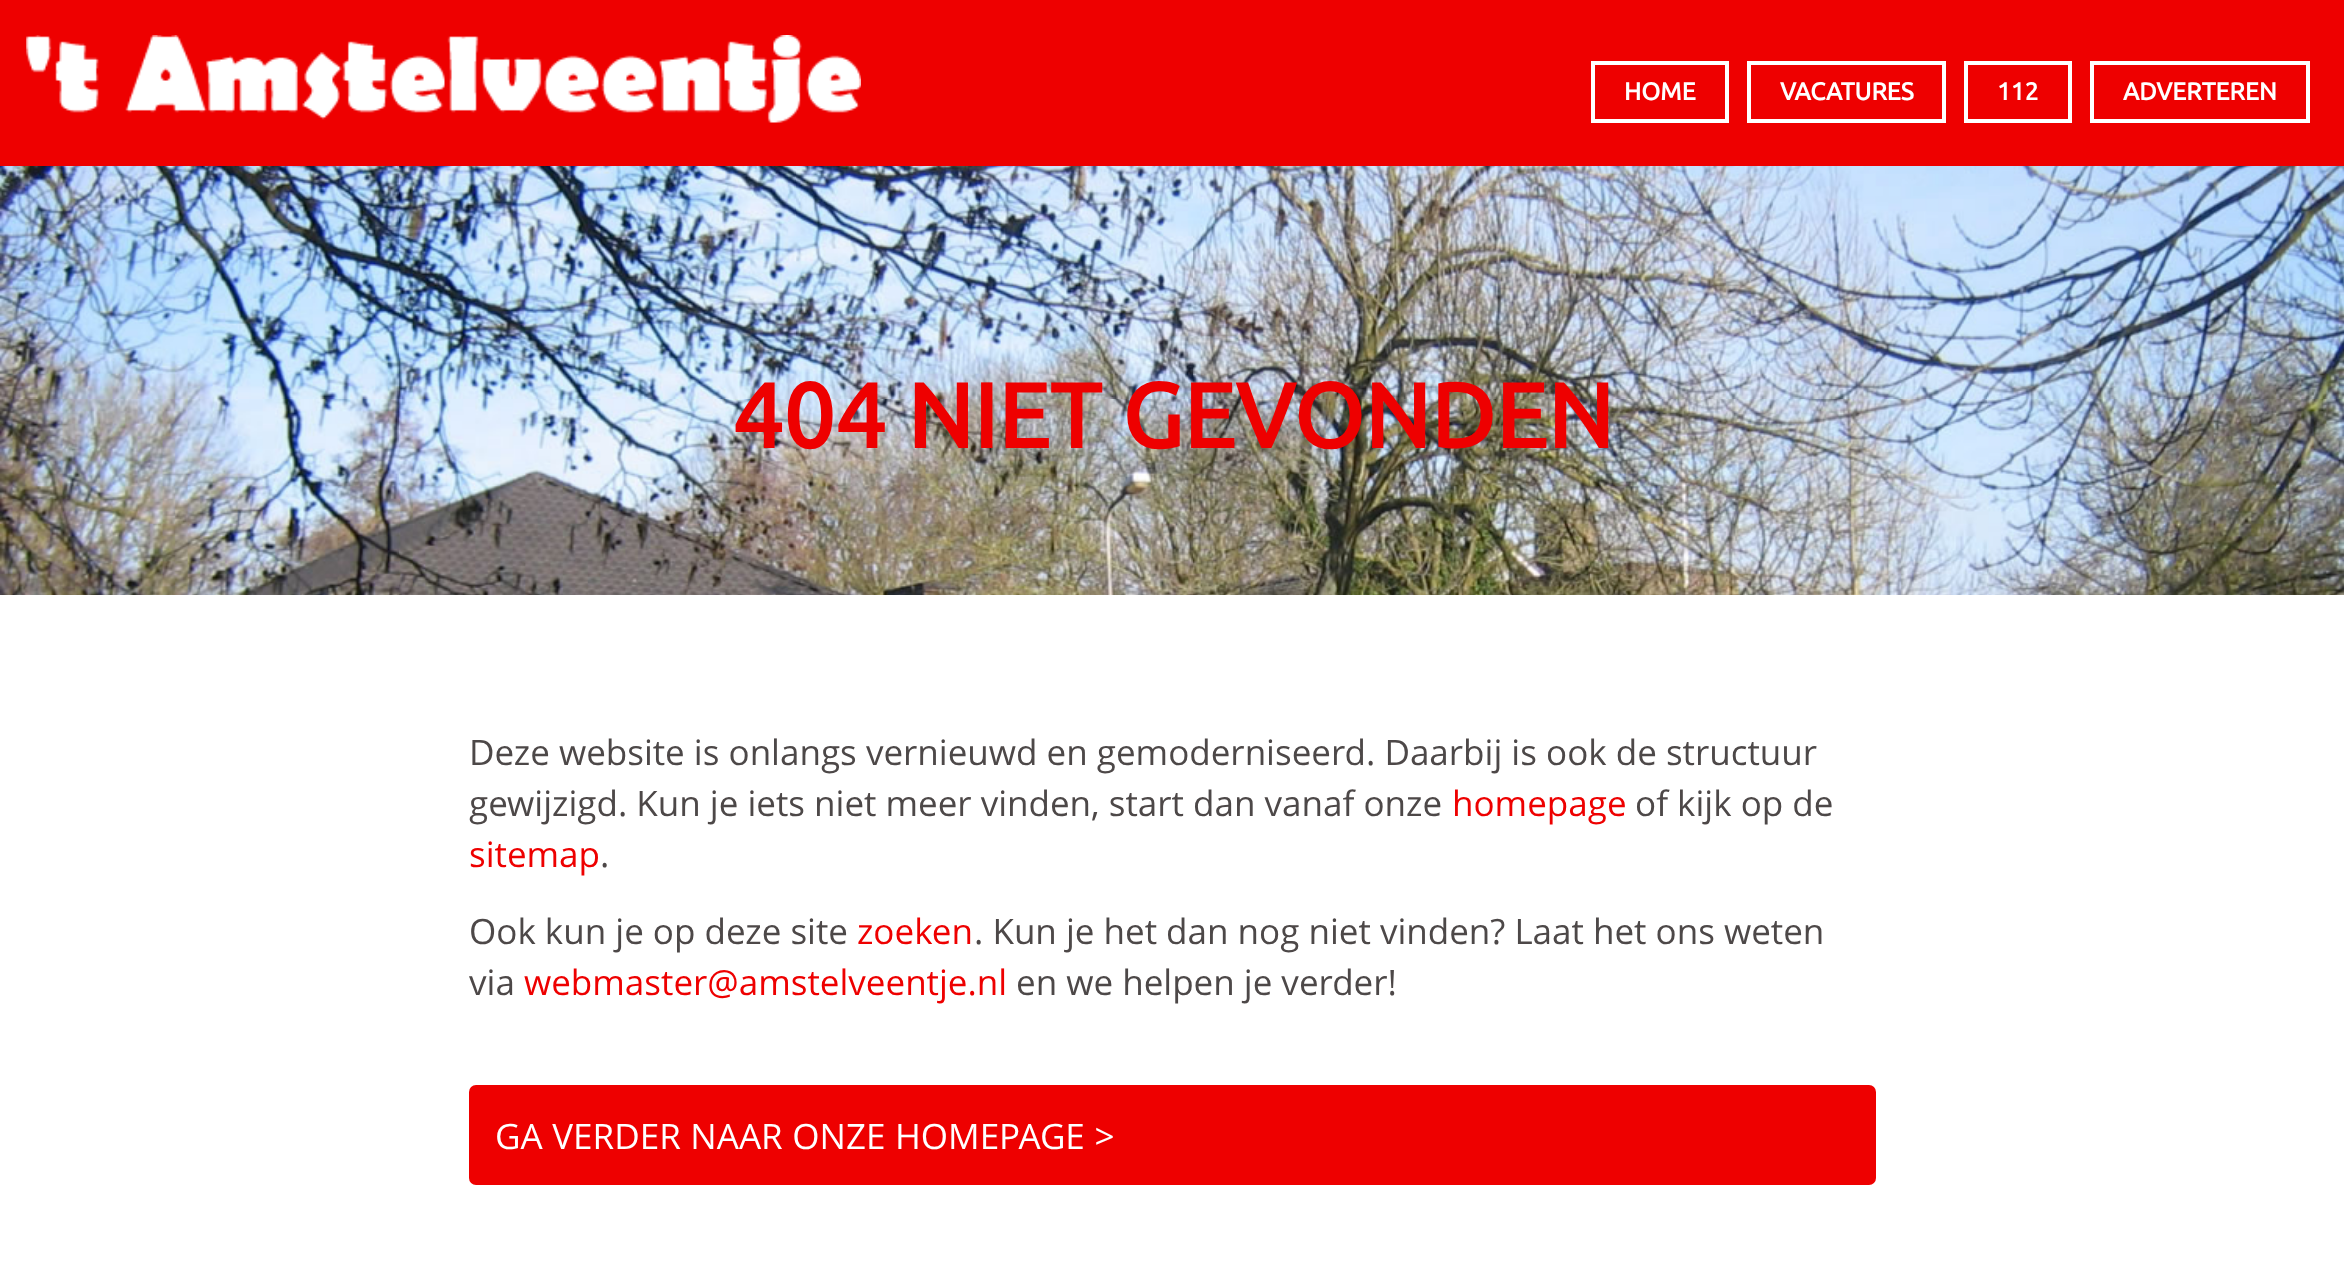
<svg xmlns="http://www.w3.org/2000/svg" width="2344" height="1284">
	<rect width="100%" height="100%" fill="#FFFFFF" />
	<rect x="0" y="0" width="2344" height="166" fill="#EE0000" />
	<image x="26" y="35" width="835" height="88" href="assets/img1.png" />
	<rect x="1593" y="63" width="134" height="58" fill="none" stroke="#FFFFFF" stroke-width="4" />
	<text x="1624" y="100" font-family="Ubuntu" font-size="24.5" font-weight="700" fill="#FFFFFF">HOME</text>
	<rect x="1749" y="63" width="195" height="58" fill="none" stroke="#FFFFFF" stroke-width="4" />
	<text x="1780" y="100" font-family="Ubuntu" font-size="24.5" font-weight="700" fill="#FFFFFF">VACATURES</text>
	<rect x="1966" y="63" width="104" height="58" fill="none" stroke="#FFFFFF" stroke-width="4" />
	<text x="1997" y="100" font-family="Ubuntu" font-size="24.5" font-weight="700" fill="#FFFFFF">112</text>
	<rect x="2092" y="63" width="216" height="58" fill="none" stroke="#FFFFFF" stroke-width="4" />
	<text x="2123" y="100" font-family="Ubuntu" font-size="24.5" font-weight="700" fill="#FFFFFF">ADVERTEREN</text>
	<image x="0" y="166" width="2344" height="429" href="assets/img2.png" />
	<text x="732" y="448" font-family="Ubuntu" font-size="91" font-weight="700" fill="#EE0000">404 NIET GEVONDEN</text>
	<g font-family="Open Sans" font-size="35" fill="#4D4848">
		<text x="469" y="765">Deze website is onlangs vernieuwd en gemoderniseerd. Daarbij is ook de structuur</text>
		<text x="469" y="816">gewijzigd. Kun je iets niet meer vinden, start dan vanaf onze</text>
	</g>
	<text x="1452" y="816" font-family="Open Sans" font-size="35" fill="#EE0000">homepage</text>
	<text x="1635" y="816" font-family="Open Sans" font-size="35" fill="#4D4848">of kijk op de</text>
	<text x="469" y="867" font-family="Open Sans" font-size="35" fill="#EE0000">sitemap</text>
	<g font-family="Open Sans" font-size="35" fill="#4D4848">
		<text x="600" y="867">.</text>
		<text x="469" y="944">Ook kun je op deze site</text>
	</g>
	<text x="857" y="944" font-family="Open Sans" font-size="35" fill="#EE0000">zoeken</text>
	<g font-family="Open Sans" font-size="35" fill="#4D4848">
		<text x="974" y="944">. Kun je het dan nog niet vinden? Laat het ons weten</text>
		<text x="469" y="995">via</text>
	</g>
	<text x="524" y="995" font-family="Open Sans" font-size="35" fill="#EE0000">webmaster@amstelveentje.nl</text>
	<text x="1016" y="995" font-family="Open Sans" font-size="35" fill="#4D4848">en we helpen je verder!</text>
	<rect x="469" y="1085" width="1407" height="100" rx="7" fill="#EE0000" />
	<text x="495" y="1149" word-spacing="0.5" font-family="Open Sans" font-size="35" fill="#FFFFFF">GA VERDER NAAR ONZE HOMEPAGE &gt;</text>
</svg>
